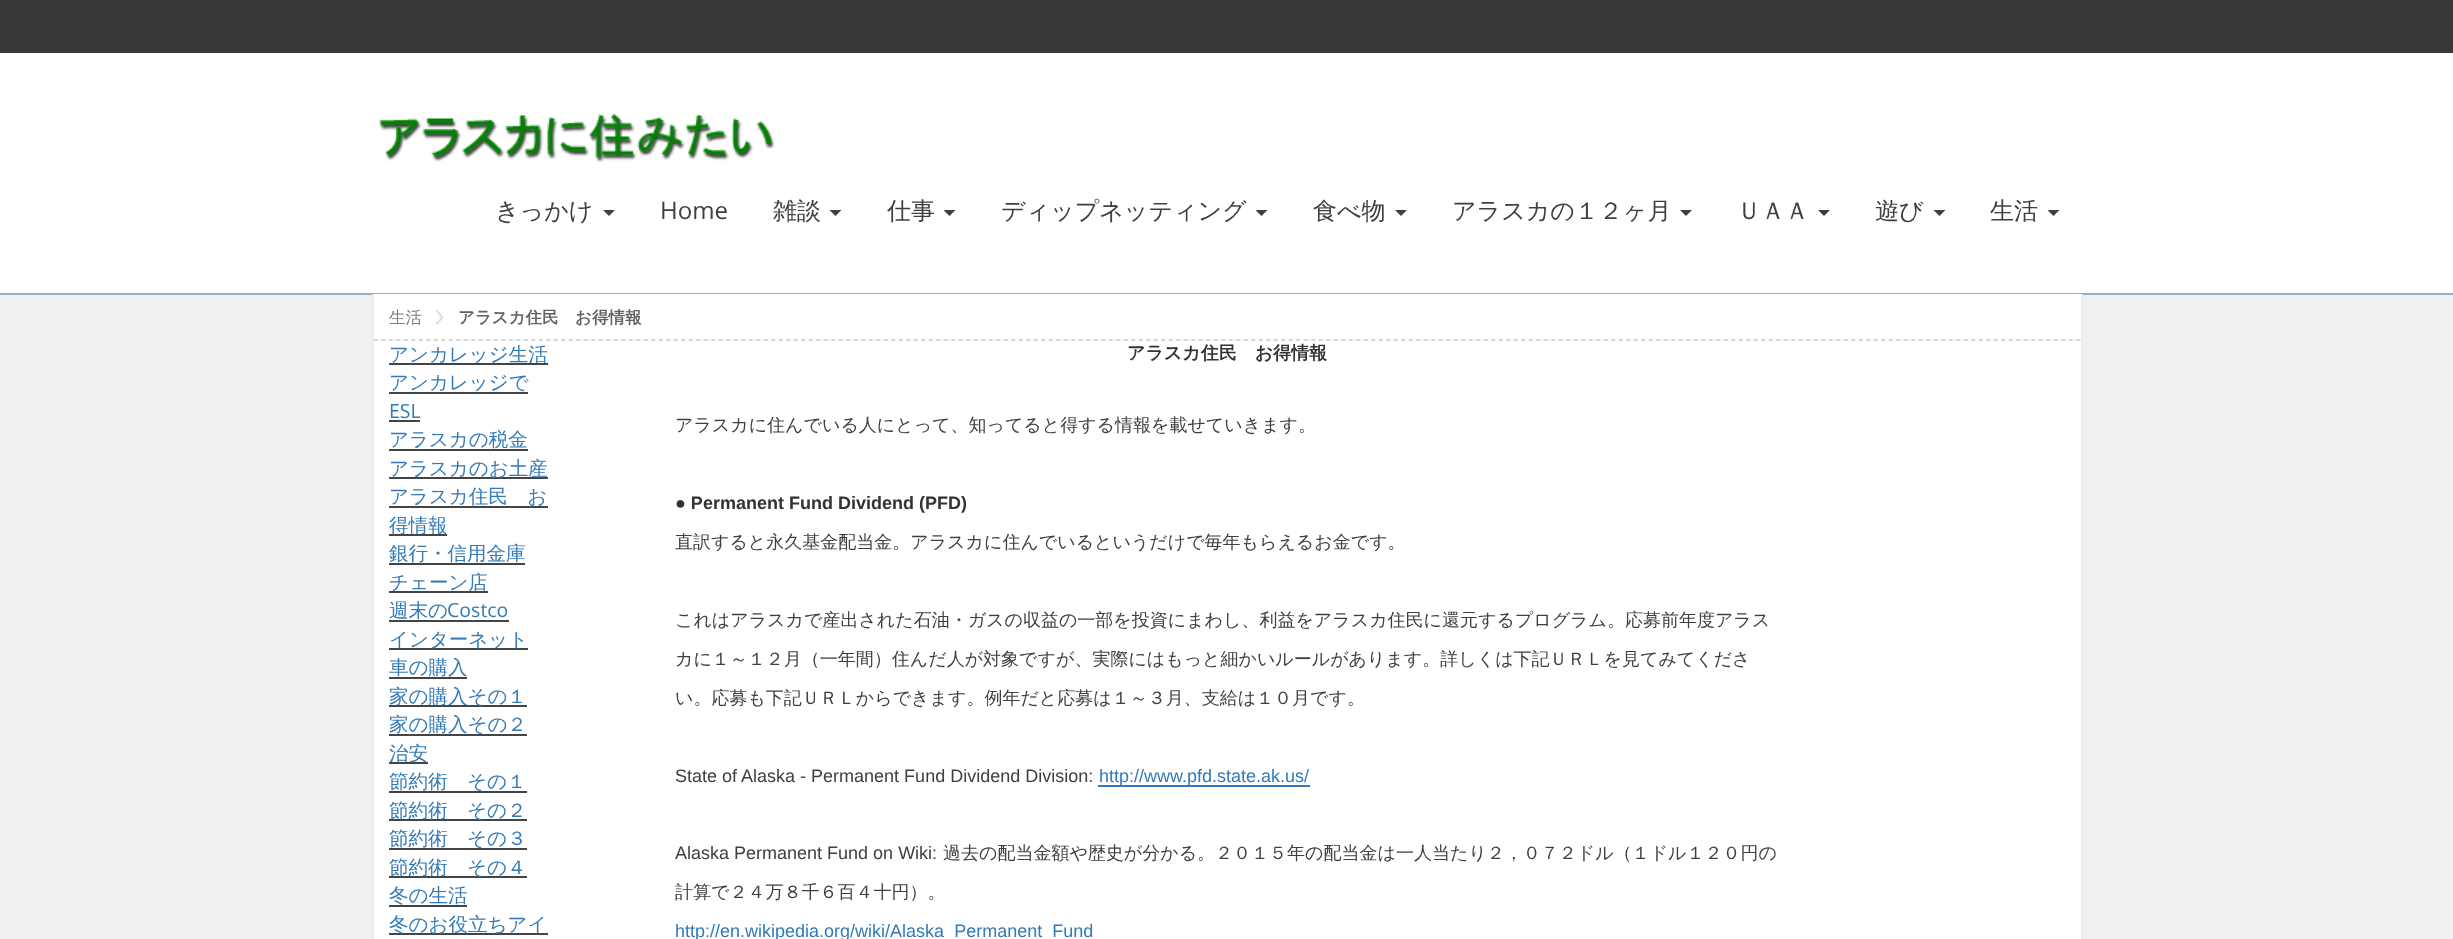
<svg xmlns="http://www.w3.org/2000/svg" width="2453" height="939">
	<rect width="100%" height="100%" fill="#F0F0F0" />
	<rect x="0" y="0" width="2453" height="53" fill="#383838" />
	<rect x="0" y="53" width="2453" height="240" fill="#FFFFFF" />
	<rect x="0" y="293" width="2453" height="2" fill="#91AFCA" />
	<image x="379" y="113" width="396" height="50" href="assets/img1.png" />
	<text x="495" y="219" font-family="WenQuanYi Zen Hei" font-size="24" font-weight="500" fill="#3F3F3F">きっかけ</text>
	<path d="M603 210H615L609 216Z" fill="#3F3F3F" />
	<text x="660" y="219" font-family="Open Sans" font-size="24" fill="#3F3F3F">Home</text>
	<text x="773" y="219" font-family="WenQuanYi Zen Hei" font-size="24" font-weight="500" fill="#3F3F3F">雑談</text>
	<path d="M829.5 210H841.5L835.5 216Z" fill="#3F3F3F" />
	<text x="887" y="219" font-family="WenQuanYi Zen Hei" font-size="24" font-weight="500" fill="#3F3F3F">仕事</text>
	<path d="M943.5 210H955.5L949.5 216Z" fill="#3F3F3F" />
	<text x="1001" y="219" font-family="WenQuanYi Zen Hei" font-size="24" font-weight="500" fill="#3F3F3F">ディップネッティング</text>
	<path d="M1255.5 210H1267.5L1261.5 216Z" fill="#3F3F3F" />
	<text x="1313" y="219" font-family="WenQuanYi Zen Hei" font-size="24" font-weight="500" fill="#3F3F3F">食べ物</text>
	<path d="M1395 210H1407L1401 216Z" fill="#3F3F3F" />
	<text x="1452" y="219" font-family="WenQuanYi Zen Hei" font-size="24" font-weight="500" fill="#3F3F3F">アラスカの１２ヶ月</text>
	<path d="M1680 210H1692L1686 216Z" fill="#3F3F3F" />
	<text x="1737" y="219" font-family="WenQuanYi Zen Hei" font-size="24" font-weight="500" fill="#3F3F3F">ＵＡＡ</text>
	<path d="M1818 210H1830L1824 216Z" fill="#3F3F3F" />
	<text x="1875" y="219" font-family="WenQuanYi Zen Hei" font-size="24" font-weight="500" fill="#3F3F3F">遊び</text>
	<path d="M1933.5 210H1945.5L1939.5 216Z" fill="#3F3F3F" />
	<text x="1990" y="219" font-family="WenQuanYi Zen Hei" font-size="24" font-weight="500" fill="#3F3F3F">生活</text>
	<path d="M2047.5 210H2059.5L2053.5 216Z" fill="#3F3F3F" />
	<rect x="374" y="294" width="1707" height="645" fill="#FFFFFF" />
	<rect x="2081" y="294" width="2" height="645" fill="#ECECEC" />
	<rect x="372" y="294" width="2" height="645" fill="#ECECEC" />
	<path d="M373.5 340H2080.5" fill="none" stroke="#CCCCCC" stroke-width="1.5" stroke-dasharray="4.5 3" />
	<text x="389" y="323" font-family="WenQuanYi Zen Hei" font-size="16.5" font-weight="500" fill="#7B7D82">生活</text>
	<image x="436" y="310" width="7" height="14" href="assets/img2.png" />
	<text x="458" y="323" font-family="WenQuanYi Zen Hei" font-size="16.5" font-weight="700" fill="#626262">アラスカ住民　お得情報</text>
	<rect x="389" y="363" width="159" height="2" fill="#444444" />
	<g font-family="WenQuanYi Zen Hei" font-size="19.5" font-weight="500" fill="#337AB7">
		<text x="389" y="361">アンカレッジ生活</text>
		<text x="389" y="389">アンカレッジで</text>
	</g>
	<rect x="389" y="392" width="139" height="2" fill="#444444" />
	<text x="389" y="418" font-family="Open Sans" font-size="19.5" fill="#337AB7">ESL</text>
	<rect x="389" y="420" width="31" height="2" fill="#444444" />
	<text x="389" y="446" font-family="WenQuanYi Zen Hei" font-size="19.5" font-weight="500" fill="#337AB7">アラスカの税金</text>
	<rect x="389" y="449" width="139" height="2" fill="#444444" />
	<rect x="389" y="477" width="159" height="2" fill="#444444" />
	<g font-family="WenQuanYi Zen Hei" font-size="19.5" font-weight="500" fill="#337AB7">
		<text x="389" y="475">アラスカのお土産</text>
		<text x="389" y="503">アラスカ住民　お</text>
	</g>
	<rect x="389" y="506" width="159" height="2" fill="#444444" />
	<rect x="389" y="534" width="58" height="2" fill="#444444" />
	<g font-family="WenQuanYi Zen Hei" font-size="19.5" font-weight="500" fill="#337AB7">
		<text x="389" y="532">得情報</text>
		<text x="389" y="560">銀行・信用金庫</text>
	</g>
	<rect x="389" y="563" width="136" height="2" fill="#444444" />
	<rect x="389" y="591" width="99" height="2" fill="#444444" />
	<g font-family="WenQuanYi Zen Hei" font-size="19.5" font-weight="500" fill="#337AB7">
		<text x="389" y="589">チェーン店</text>
		<text x="389" y="617">週末の</text>
	</g>
	<rect x="389" y="620" width="120" height="2" fill="#444444" />
	<text x="447" y="617" font-family="Open Sans" font-size="19.5" fill="#337AB7">Costco</text>
	<rect x="389" y="648" width="139" height="2" fill="#444444" />
	<g font-family="WenQuanYi Zen Hei" font-size="19.5" font-weight="500" fill="#337AB7">
		<text x="389" y="646">インターネット</text>
		<text x="389" y="674">車の購入</text>
	</g>
	<rect x="389" y="677" width="78" height="2" fill="#444444" />
	<rect x="389" y="705" width="138" height="2" fill="#444444" />
	<text x="389" y="703" font-family="WenQuanYi Zen Hei" font-size="19.5" font-weight="500" fill="#337AB7">家の購入その１</text>
	<rect x="389" y="734" width="138" height="2" fill="#444444" />
	<text x="389" y="731" font-family="WenQuanYi Zen Hei" font-size="19.5" font-weight="500" fill="#337AB7">家の購入その２</text>
	<rect x="389" y="762" width="39" height="2" fill="#444444" />
	<text x="389" y="760" font-family="WenQuanYi Zen Hei" font-size="19.5" font-weight="500" fill="#337AB7">治安</text>
	<rect x="389" y="791" width="138" height="2" fill="#444444" />
	<text x="389" y="788" font-family="WenQuanYi Zen Hei" font-size="19.5" font-weight="500" fill="#337AB7">節約術　その１</text>
	<rect x="389" y="819" width="138" height="2" fill="#444444" />
	<text x="389" y="817" font-family="WenQuanYi Zen Hei" font-size="19.5" font-weight="500" fill="#337AB7">節約術　その２</text>
	<rect x="389" y="848" width="138" height="2" fill="#444444" />
	<text x="389" y="845" font-family="WenQuanYi Zen Hei" font-size="19.5" font-weight="500" fill="#337AB7">節約術　その３</text>
	<rect x="389" y="876" width="138" height="2" fill="#444444" />
	<g font-family="WenQuanYi Zen Hei" font-size="19.5" font-weight="500" fill="#337AB7">
		<text x="389" y="874">節約術　その４</text>
		<text x="389" y="902">冬の生活</text>
	</g>
	<rect x="389" y="905" width="78" height="2" fill="#444444" />
	<rect x="389" y="933" width="159" height="2" fill="#444444" />
	<text x="389" y="931" font-family="WenQuanYi Zen Hei" font-size="19.5" font-weight="500" fill="#337AB7">冬のお役立ちアイ</text>
	<text x="1127" y="359" font-family="WenQuanYi Zen Hei" font-size="18" font-weight="700" fill="#333333">アラスカ住民　お得情報</text>
	<text x="675" y="431" font-family="WenQuanYi Zen Hei" font-size="18" font-weight="500" fill="#3F3F3F">アラスカに住んでいる人にとって、知ってると得する情報を載せていきます。</text>
	<text x="675" y="509" font-family="Liberation Sans" font-size="18" font-weight="700" fill="#333333">● Permanent Fund Dividend (PFD)</text>
	<g font-family="WenQuanYi Zen Hei" font-size="18" font-weight="500" fill="#3F3F3F">
		<text x="675" y="548">直訳すると永久基金配当金。アラスカに住んでいるというだけで毎年もらえるお金です。</text>
		<text x="675" y="626">これはアラスカで産出された石油・ガスの収益の一部を投資にまわし、利益をアラスカ住民に還元するプログラム。応募前年度アラス</text>
		<text x="675" y="665">カに１～１２月（一年間）住んだ人が対象ですが、実際にはもっと細かいルールがあります。詳しくは下記ＵＲＬを見てみてくださ</text>
		<text x="675" y="704">い。応募も下記ＵＲＬからできます。例年だと応募は１～３月、支給は１０月です。</text>
	</g>
	<text x="675" y="782" font-family="Liberation Sans" font-size="18" fill="#3F3F3F">State of Alaska - Permanent Fund Dividend Division:</text>
	<rect x="1098" y="785" width="212" height="2" fill="#337AB7" />
	<text x="1099" y="782" font-family="Liberation Sans" font-size="18" fill="#337AB7">http://www.pfd.state.ak.us/</text>
	<text x="675" y="859" font-family="Liberation Sans" font-size="18" fill="#3F3F3F">Alaska Permanent Fund on Wiki:</text>
	<g font-family="WenQuanYi Zen Hei" font-size="18" font-weight="500" fill="#3F3F3F">
		<text x="943" y="859">過去の配当金額や歴史が分かる。２０１５年の配当金は一人当たり２，０７２ドル（１ドル１２０円の</text>
		<text x="675" y="898">計算で２４万８千６百４十円）。</text>
	</g>
	<text x="675" y="937" font-family="Liberation Sans" font-size="18" fill="#337AB7">http://en.wikipedia.org/wiki/Alaska_Permanent_Fund</text>
</svg>
